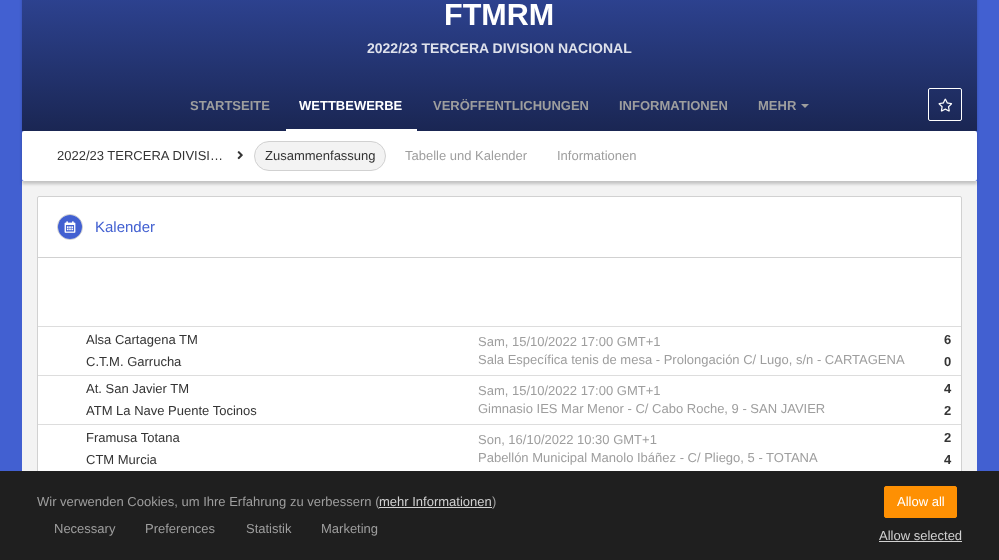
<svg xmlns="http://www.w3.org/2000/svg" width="999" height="560">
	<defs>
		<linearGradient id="g1" gradientUnits="userSpaceOnUse" x1="500" y1="-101" x2="500" y2="131"><stop offset="0" stop-color="#3B56BC" /><stop offset="0.7" stop-color="#243573" /><stop offset="1" stop-color="#1A2653" /></linearGradient>
	</defs>
	<rect width="100%" height="100%" fill="#4260D1" />
	<rect x="22" y="181" width="955" height="290" fill="#F3F3F3" />
	<rect x="22" y="-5" width="955" height="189" fill="#000000" fill-opacity="0.2" filter="blur(1.5px)" />
	<rect x="22" y="131" width="955" height="50" fill="#4260D1" />
	<rect x="22" y="0" width="955" height="131" fill="url(#g1)" />
	<text x="444" y="25" font-family="Liberation Sans" font-size="30.5" font-weight="700" fill="#FFFFFF">FTMRM</text>
	<text x="367" y="53" font-family="Liberation Sans" font-size="14" font-weight="700" fill="#DEE1EB">2022/23 TERCERA DIVISION NACIONAL</text>
	<text x="190" y="110" font-family="Liberation Sans" font-size="13" font-weight="700" fill="#9E9E9E">STARTSEITE</text>
	<text x="299" y="110" font-family="Liberation Sans" font-size="13" font-weight="700" fill="#FFFFFF">WETTBEWERBE</text>
	<rect x="286" y="129" width="131" height="2" fill="#FFFFFF" />
	<g font-family="Liberation Sans" font-size="13" font-weight="700" fill="#9E9E9E">
		<text x="433" y="110">VERÖFFENTLICHUNGEN</text>
		<text x="619" y="110">INFORMATIONEN</text>
		<text x="758" y="110">MEHR</text>
	</g>
	<path d="M801 104H809L805 108Z" fill="#9E9E9E" />
	<rect x="928.5" y="88.5" width="33" height="32" rx="1.5" fill="none" stroke="#FFFFFF" />
	<image x="938" y="98" width="15" height="14" href="assets/img1.png" />
	<rect x="22" y="131" width="955" height="50" rx="2" fill="#FFFFFF" />
	<text x="57" y="160" font-family="Liberation Sans" font-size="13" fill="#343434">2022/23 TERCERA DIVISI…</text>
	<image x="237" y="151" width="6" height="9" href="assets/img2.png" />
	<rect x="254.5" y="141.5" width="131" height="29" rx="14.5" fill="#F3F3F3" stroke="#D1D1D1" />
	<text x="265" y="160" font-family="Liberation Sans" font-size="13" fill="#343434">Zusammenfassung</text>
	<g font-family="Liberation Sans" font-size="13" fill="#9E9E9E">
		<text x="405" y="160">Tabelle und Kalender</text>
		<text x="557" y="160">Informationen</text>
	</g>
	<rect x="37.5" y="196.5" width="924" height="316" rx="1.5" fill="#FFFFFF" stroke="#D1D1D1" />
	<circle cx="70" cy="227" r="12.5" fill="none" stroke="#CCCCCC" />
	<circle cx="70" cy="227" r="12" fill="#4260D1" />
	<image x="64" y="221" width="12" height="12" href="assets/img3.png" />
	<text x="95" y="232" font-family="Liberation Sans" font-size="15" fill="#4260D1">Kalender</text>
	<rect x="38" y="257" width="923" height="1" fill="#D1D1D1" />
	<g font-family="Liberation Sans" font-size="13" fill="#343434">
		<text x="86" y="344">Alsa Cartagena TM</text>
		<text x="86" y="366">C.T.M. Garrucha</text>
	</g>
	<g font-family="Liberation Sans" font-size="13" fill="#9E9E9E">
		<text x="478" y="346">Sam, 15/10/2022 17:00 GMT+1</text>
		<text x="478" y="364">Sala Específica tenis de mesa - Prolongación C/ Lugo, s/n - CARTAGENA</text>
	</g>
	<rect x="38" y="326" width="923" height="1" fill="#DDDDDD" />
	<g font-family="Liberation Sans" font-size="13" font-weight="700" fill="#343434">
		<text x="944" y="344">6</text>
		<text x="944" y="366">0</text>
	</g>
	<g font-family="Liberation Sans" font-size="13" fill="#343434">
		<text x="86" y="393">At. San Javier TM</text>
		<text x="86" y="415">ATM La Nave Puente Tocinos</text>
	</g>
	<g font-family="Liberation Sans" font-size="13" fill="#9E9E9E">
		<text x="478" y="395">Sam, 15/10/2022 17:00 GMT+1</text>
		<text x="478" y="413">Gimnasio IES Mar Menor - C/ Cabo Roche, 9 - SAN JAVIER</text>
	</g>
	<rect x="38" y="375" width="923" height="1" fill="#DDDDDD" />
	<g font-family="Liberation Sans" font-size="13" font-weight="700" fill="#343434">
		<text x="944" y="393">4</text>
		<text x="944" y="415">2</text>
	</g>
	<g font-family="Liberation Sans" font-size="13" fill="#343434">
		<text x="86" y="442">Framusa Totana</text>
		<text x="86" y="464">CTM Murcia</text>
	</g>
	<g font-family="Liberation Sans" font-size="13" fill="#9E9E9E">
		<text x="478" y="444">Son, 16/10/2022 10:30 GMT+1</text>
		<text x="478" y="462">Pabellón Municipal Manolo Ibáñez - C/ Pliego, 5 - TOTANA</text>
	</g>
	<rect x="38" y="424" width="923" height="1" fill="#DDDDDD" />
	<g font-family="Liberation Sans" font-size="13" font-weight="700" fill="#343434">
		<text x="944" y="442">2</text>
		<text x="944" y="464">4</text>
	</g>
	<rect x="0" y="471" width="999" height="89" fill="#1F1F1F" />
	<text x="37" y="506" font-family="Liberation Sans" font-size="13" fill="#9E9E9E">Wir verwenden Cookies, um Ihre Erfahrung zu verbessern (</text>
	<text x="379" y="506" font-family="Liberation Sans" font-size="13" fill="#D1D1D1">mehr Informationen</text>
	<rect x="379" y="507" width="113" height="1" fill="#D1D1D1" />
	<g font-family="Liberation Sans" font-size="13" fill="#9E9E9E">
		<text x="492" y="506">)</text>
		<text x="54" y="533">Necessary</text>
		<text x="145" y="533">Preferences</text>
		<text x="246" y="533">Statistik</text>
		<text x="321" y="533">Marketing</text>
	</g>
	<rect x="884.5" y="486.5" width="72" height="31" rx="1.5" fill="#FE9003" stroke="#FE9003" />
	<text x="897" y="506" font-family="Liberation Sans" font-size="13" fill="#FFFFFF">Allow all</text>
	<text x="879" y="540" font-family="Liberation Sans" font-size="13" fill="#D1D1D1">Allow selected</text>
	<rect x="879" y="541" width="83" height="1" fill="#D1D1D1" />
</svg>
